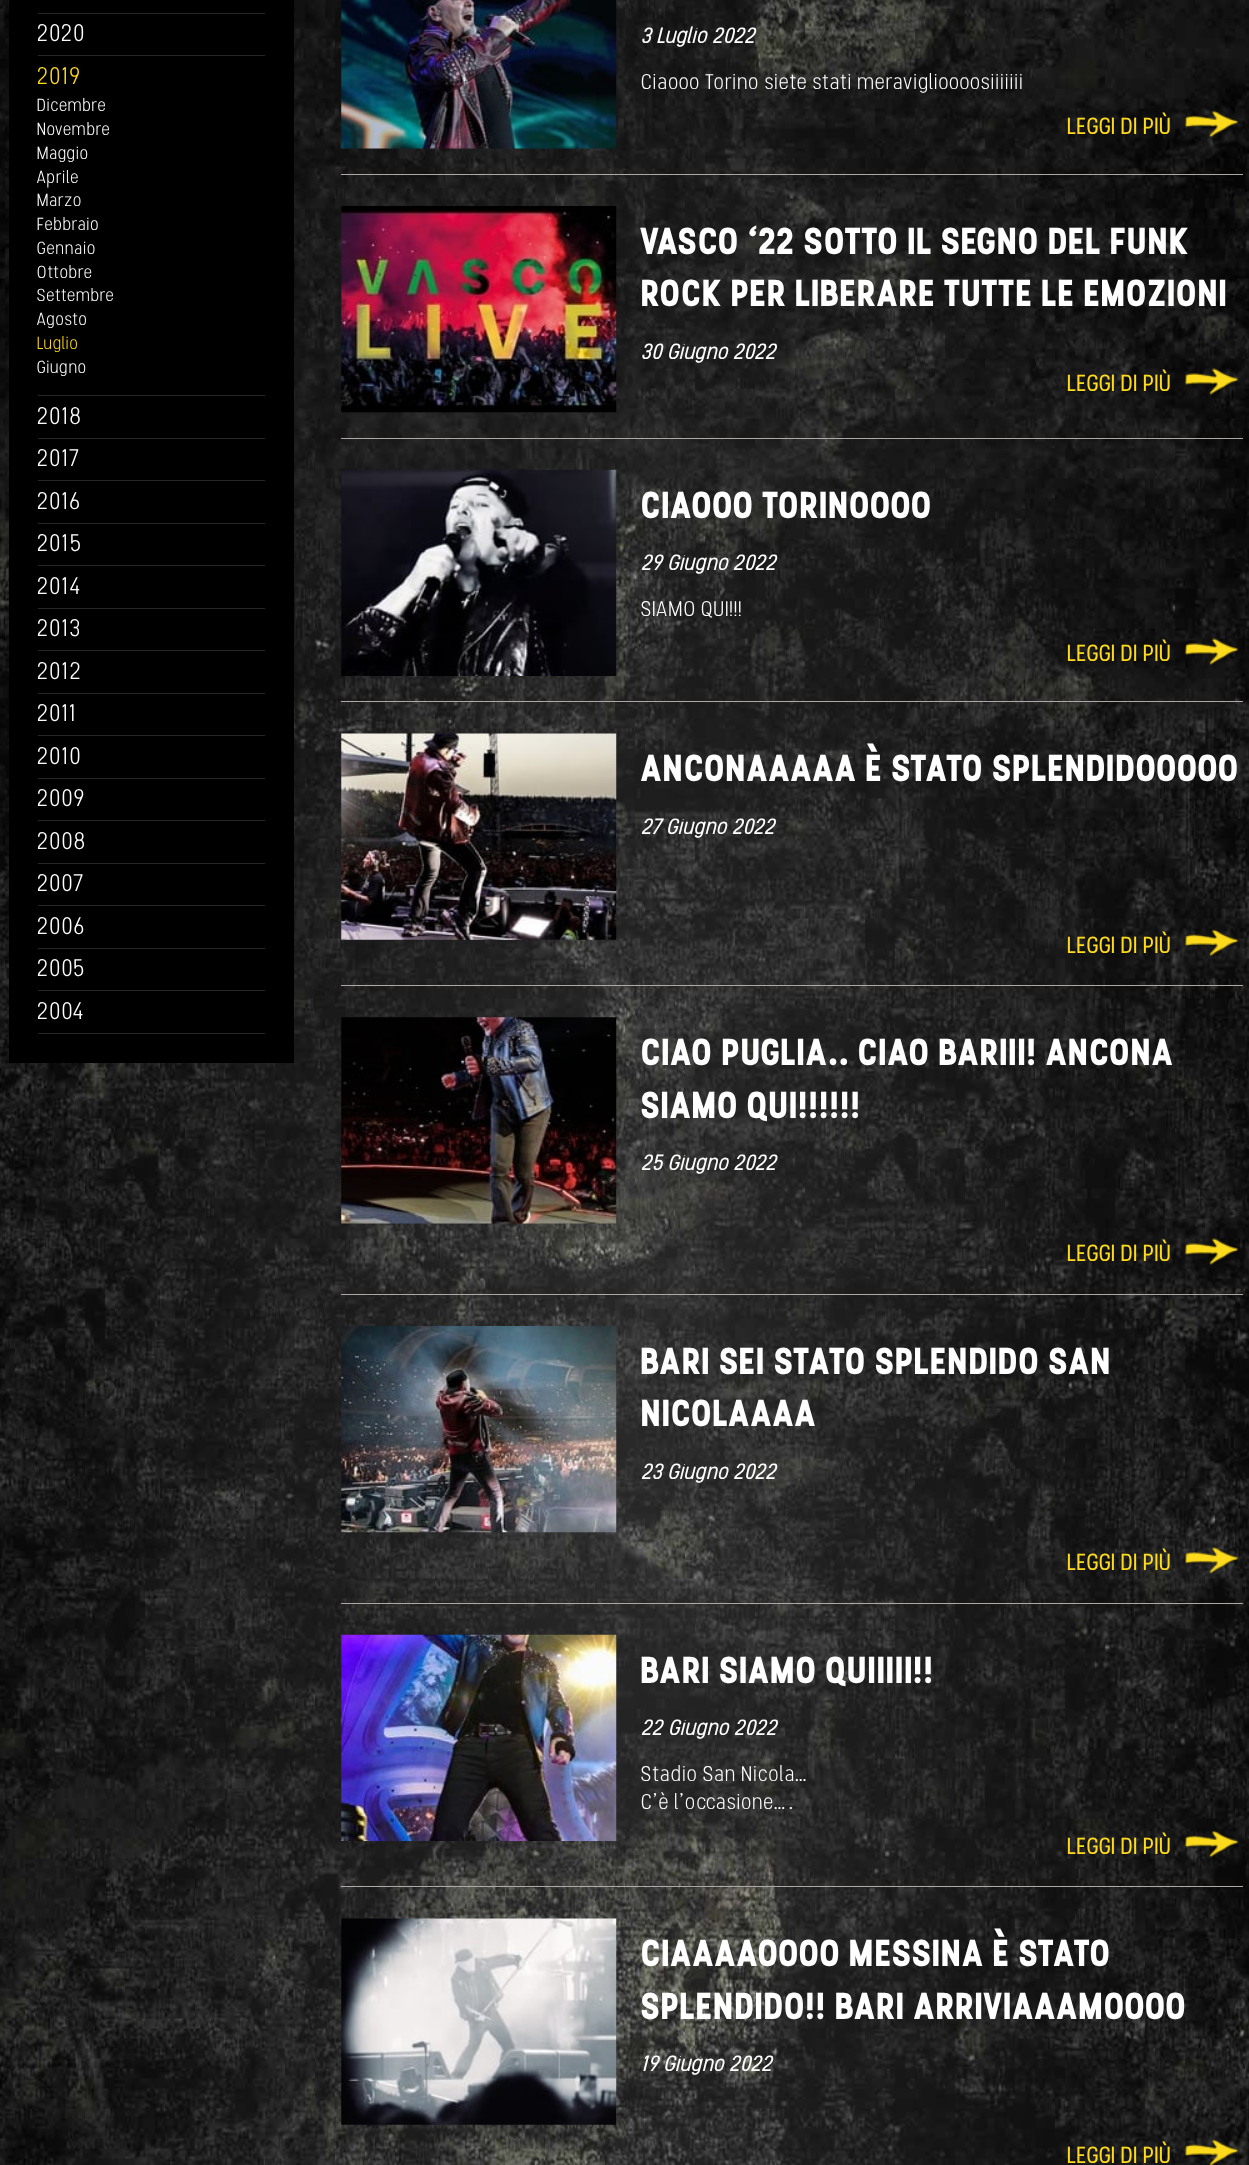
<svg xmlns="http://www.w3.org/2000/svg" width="1249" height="2165">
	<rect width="100%" height="100%" fill="#FFFFFF" />
	<image x="0" y="0" width="1249" height="2165" href="assets/img1.png" />
	<rect x="9" y="0" width="285" height="1063" fill="#000000" />
	<rect x="38" y="13" width="227" height="1" fill="#262626" />
	<rect x="38" y="55" width="227" height="1" fill="#262626" />
	<text x="37" y="41" font-family="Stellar" font-size="24" font-weight="300" fill="#FFFFFF">2020</text>
	<rect x="38" y="395" width="227" height="1" fill="#262626" />
	<text x="37" y="84" font-family="Stellar" font-size="24" font-weight="300" fill="#FDDA1B">2019</text>
	<g font-family="Stellar" font-size="17.5" font-weight="300" fill="#FFFFFF">
		<text x="37" y="111">Dicembre</text>
		<text x="37" y="135">Novembre</text>
		<text x="37" y="159">Maggio</text>
		<text x="37" y="183">Aprile</text>
		<text x="37" y="206">Marzo</text>
		<text x="37" y="230">Febbraio</text>
		<text x="37" y="254">Gennaio</text>
		<text x="37" y="278">Ottobre</text>
		<text x="37" y="301">Settembre</text>
		<text x="37" y="325">Agosto</text>
	</g>
	<text x="37" y="349" font-family="Stellar" font-size="17.5" font-weight="300" fill="#FDDA1B">Luglio</text>
	<text x="37" y="373" font-family="Stellar" font-size="17.5" font-weight="300" fill="#FFFFFF">Giugno</text>
	<rect x="38" y="438" width="227" height="1" fill="#262626" />
	<text x="37" y="424" font-family="Stellar" font-size="24" font-weight="300" fill="#FFFFFF">2018</text>
	<rect x="38" y="480" width="227" height="1" fill="#262626" />
	<text x="37" y="466" font-family="Stellar" font-size="24" font-weight="300" fill="#FFFFFF">2017</text>
	<rect x="38" y="523" width="227" height="1" fill="#262626" />
	<text x="37" y="509" font-family="Stellar" font-size="24" font-weight="300" fill="#FFFFFF">2016</text>
	<rect x="38" y="565" width="227" height="1" fill="#262626" />
	<text x="37" y="551" font-family="Stellar" font-size="24" font-weight="300" fill="#FFFFFF">2015</text>
	<rect x="38" y="608" width="227" height="1" fill="#262626" />
	<text x="37" y="594" font-family="Stellar" font-size="24" font-weight="300" fill="#FFFFFF">2014</text>
	<rect x="38" y="650" width="227" height="1" fill="#262626" />
	<text x="37" y="636" font-family="Stellar" font-size="24" font-weight="300" fill="#FFFFFF">2013</text>
	<rect x="38" y="693" width="227" height="1" fill="#262626" />
	<text x="37" y="679" font-family="Stellar" font-size="24" font-weight="300" fill="#FFFFFF">2012</text>
	<rect x="38" y="735" width="227" height="1" fill="#262626" />
	<text x="37" y="721" font-family="Stellar" font-size="24" font-weight="300" fill="#FFFFFF">2011</text>
	<rect x="38" y="778" width="227" height="1" fill="#262626" />
	<text x="37" y="764" font-family="Stellar" font-size="24" font-weight="300" fill="#FFFFFF">2010</text>
	<rect x="38" y="820" width="227" height="1" fill="#262626" />
	<text x="37" y="806" font-family="Stellar" font-size="24" font-weight="300" fill="#FFFFFF">2009</text>
	<rect x="38" y="863" width="227" height="1" fill="#262626" />
	<text x="37" y="849" font-family="Stellar" font-size="24" font-weight="300" fill="#FFFFFF">2008</text>
	<rect x="38" y="905" width="227" height="1" fill="#262626" />
	<text x="37" y="891" font-family="Stellar" font-size="24" font-weight="300" fill="#FFFFFF">2007</text>
	<rect x="38" y="948" width="227" height="1" fill="#262626" />
	<text x="37" y="934" font-family="Stellar" font-size="24" font-weight="300" fill="#FFFFFF">2006</text>
	<rect x="38" y="990" width="227" height="1" fill="#262626" />
	<text x="37" y="976" font-family="Stellar" font-size="24" font-weight="300" fill="#FFFFFF">2005</text>
	<rect x="38" y="1033" width="227" height="1" fill="#262626" />
	<text x="37" y="1019" font-family="Stellar" font-size="24" font-weight="300" fill="#FFFFFF">2004</text>
	<rect x="341" y="174" width="902" height="1" fill="#AEA9A6" />
	<image x="341" y="0" width="276" height="149" href="assets/img2.png" />
	<text x="641" y="43" font-family="Stellar" font-size="21.25" font-weight="700" font-style="italic" fill="#FFFFFF">3 Luglio 2022</text>
	<text x="641" y="89" font-family="Stellar" font-size="21.25" font-weight="300" fill="#FFFFFF">Ciaooo Torino siete stati meraviglioooosiiiiiii</text>
	<image x="1184" y="110" width="54" height="28" href="assets/img3.png" />
	<text x="1067" y="134" font-family="Stellar" font-size="22.5" font-weight="700" fill="#FDDA1B">LEGGI DI PIÙ</text>
	<rect x="341" y="438" width="902" height="1" fill="#AEA9A6" />
	<image x="341" y="206" width="276" height="207" href="assets/img4.png" />
	<g font-family="'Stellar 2'" font-size="37.5" font-weight="700" fill="#FFFFFF">
		<text x="641" y="254">VASCO ‘22 SOTTO IL SEGNO DEL FUNK</text>
		<text x="641" y="306">ROCK PER LIBERARE TUTTE LE EMOZIONI</text>
	</g>
	<text x="641" y="359" font-family="Stellar" font-size="21.25" font-weight="700" font-style="italic" fill="#FFFFFF">30 Giugno 2022</text>
	<image x="1184" y="368" width="54" height="27" href="assets/img5.png" />
	<text x="1067" y="391" font-family="Stellar" font-size="22.5" font-weight="700" fill="#FDDA1B">LEGGI DI PIÙ</text>
	<rect x="341" y="701" width="902" height="1" fill="#AEA9A6" />
	<image x="341" y="469" width="276" height="207" href="assets/img6.png" />
	<text x="641" y="518" font-family="'Stellar 2'" font-size="37.5" font-weight="700" fill="#FFFFFF">CIAOOO TORINOOOO</text>
	<text x="641" y="570" font-family="Stellar" font-size="21.25" font-weight="700" font-style="italic" fill="#FFFFFF">29 Giugno 2022</text>
	<text x="641" y="616" font-family="Stellar" font-size="21.25" font-weight="300" fill="#FFFFFF">SIAMO QUI!!!</text>
	<image x="1184" y="638" width="54" height="27" href="assets/img7.png" />
	<text x="1067" y="661" font-family="Stellar" font-size="22.5" font-weight="700" fill="#FDDA1B">LEGGI DI PIÙ</text>
	<rect x="341" y="985" width="902" height="1" fill="#AEA9A6" />
	<image x="341" y="733" width="276" height="207" href="assets/img8.png" />
	<text x="641" y="781" font-family="'Stellar 2'" font-size="37.5" font-weight="700" fill="#FFFFFF">ANCONAAAAA È STATO SPLENDIDOOOOO</text>
	<text x="641" y="834" font-family="Stellar" font-size="21.25" font-weight="700" font-style="italic" fill="#FFFFFF">27 Giugno 2022</text>
	<image x="1184" y="929" width="54" height="28" href="assets/img9.png" />
	<text x="1067" y="953" font-family="Stellar" font-size="22.5" font-weight="700" fill="#FDDA1B">LEGGI DI PIÙ</text>
	<rect x="341" y="1294" width="902" height="1" fill="#AEA9A6" />
	<image x="341" y="1017" width="276" height="207" href="assets/img10.png" />
	<g font-family="'Stellar 2'" font-size="37.5" font-weight="700" fill="#FFFFFF">
		<text x="641" y="1065">CIAO PUGLIA.. CIAO BARIII! ANCONA</text>
		<text x="641" y="1118">SIAMO QUI!!!!!!</text>
	</g>
	<text x="641" y="1170" font-family="Stellar" font-size="21.25" font-weight="700" font-style="italic" fill="#FFFFFF">25 Giugno 2022</text>
	<image x="1184" y="1238" width="54" height="27" href="assets/img11.png" />
	<text x="1067" y="1261" font-family="Stellar" font-size="22.5" font-weight="700" fill="#FDDA1B">LEGGI DI PIÙ</text>
	<rect x="341" y="1603" width="902" height="1" fill="#AEA9A6" />
	<image x="341" y="1326" width="276" height="207" href="assets/img12.png" />
	<g font-family="'Stellar 2'" font-size="37.5" font-weight="700" fill="#FFFFFF">
		<text x="641" y="1374">BARI SEI STATO SPLENDIDO SAN</text>
		<text x="641" y="1426">NICOLAAAA</text>
	</g>
	<text x="641" y="1479" font-family="Stellar" font-size="21.25" font-weight="700" font-style="italic" fill="#FFFFFF">23 Giugno 2022</text>
	<image x="1184" y="1547" width="54" height="27" href="assets/img13.png" />
	<text x="1067" y="1570" font-family="Stellar" font-size="22.5" font-weight="700" fill="#FDDA1B">LEGGI DI PIÙ</text>
	<rect x="341" y="1886" width="902" height="1" fill="#AEA9A6" />
	<image x="341" y="1634" width="276" height="207" href="assets/img14.png" />
	<text x="641" y="1683" font-family="'Stellar 2'" font-size="37.5" font-weight="700" fill="#FFFFFF">BARI SIAMO QUIIIII!!</text>
	<text x="641" y="1735" font-family="Stellar" font-size="21.25" font-weight="700" font-style="italic" fill="#FFFFFF">22 Giugno 2022</text>
	<g font-family="Stellar" font-size="21.25" font-weight="300" fill="#FFFFFF">
		<text x="641" y="1781">Stadio San Nicola…</text>
		<text x="641" y="1809">C’è l’occasione….</text>
	</g>
	<image x="1184" y="1830" width="54" height="28" href="assets/img15.png" />
	<text x="1067" y="1854" font-family="Stellar" font-size="22.5" font-weight="700" fill="#FDDA1B">LEGGI DI PIÙ</text>
	<image x="341" y="1918" width="276" height="207" href="assets/img16.png" />
	<g font-family="'Stellar 2'" font-size="37.5" font-weight="700" fill="#FFFFFF">
		<text x="641" y="1966">CIAAAAOOOO MESSINA È STATO</text>
		<text x="641" y="2019">SPLENDIDO!! BARI ARRIVIAAAMOOOO</text>
	</g>
	<text x="641" y="2071" font-family="Stellar" font-size="21.25" font-weight="700" font-style="italic" fill="#FFFFFF">19 Giugno 2022</text>
	<image x="1184" y="2139" width="55" height="26" href="assets/img17.png" />
	<text x="1067" y="2163" font-family="Stellar" font-size="22.5" font-weight="700" fill="#FDDA1B">LEGGI DI PIÙ</text>
</svg>
